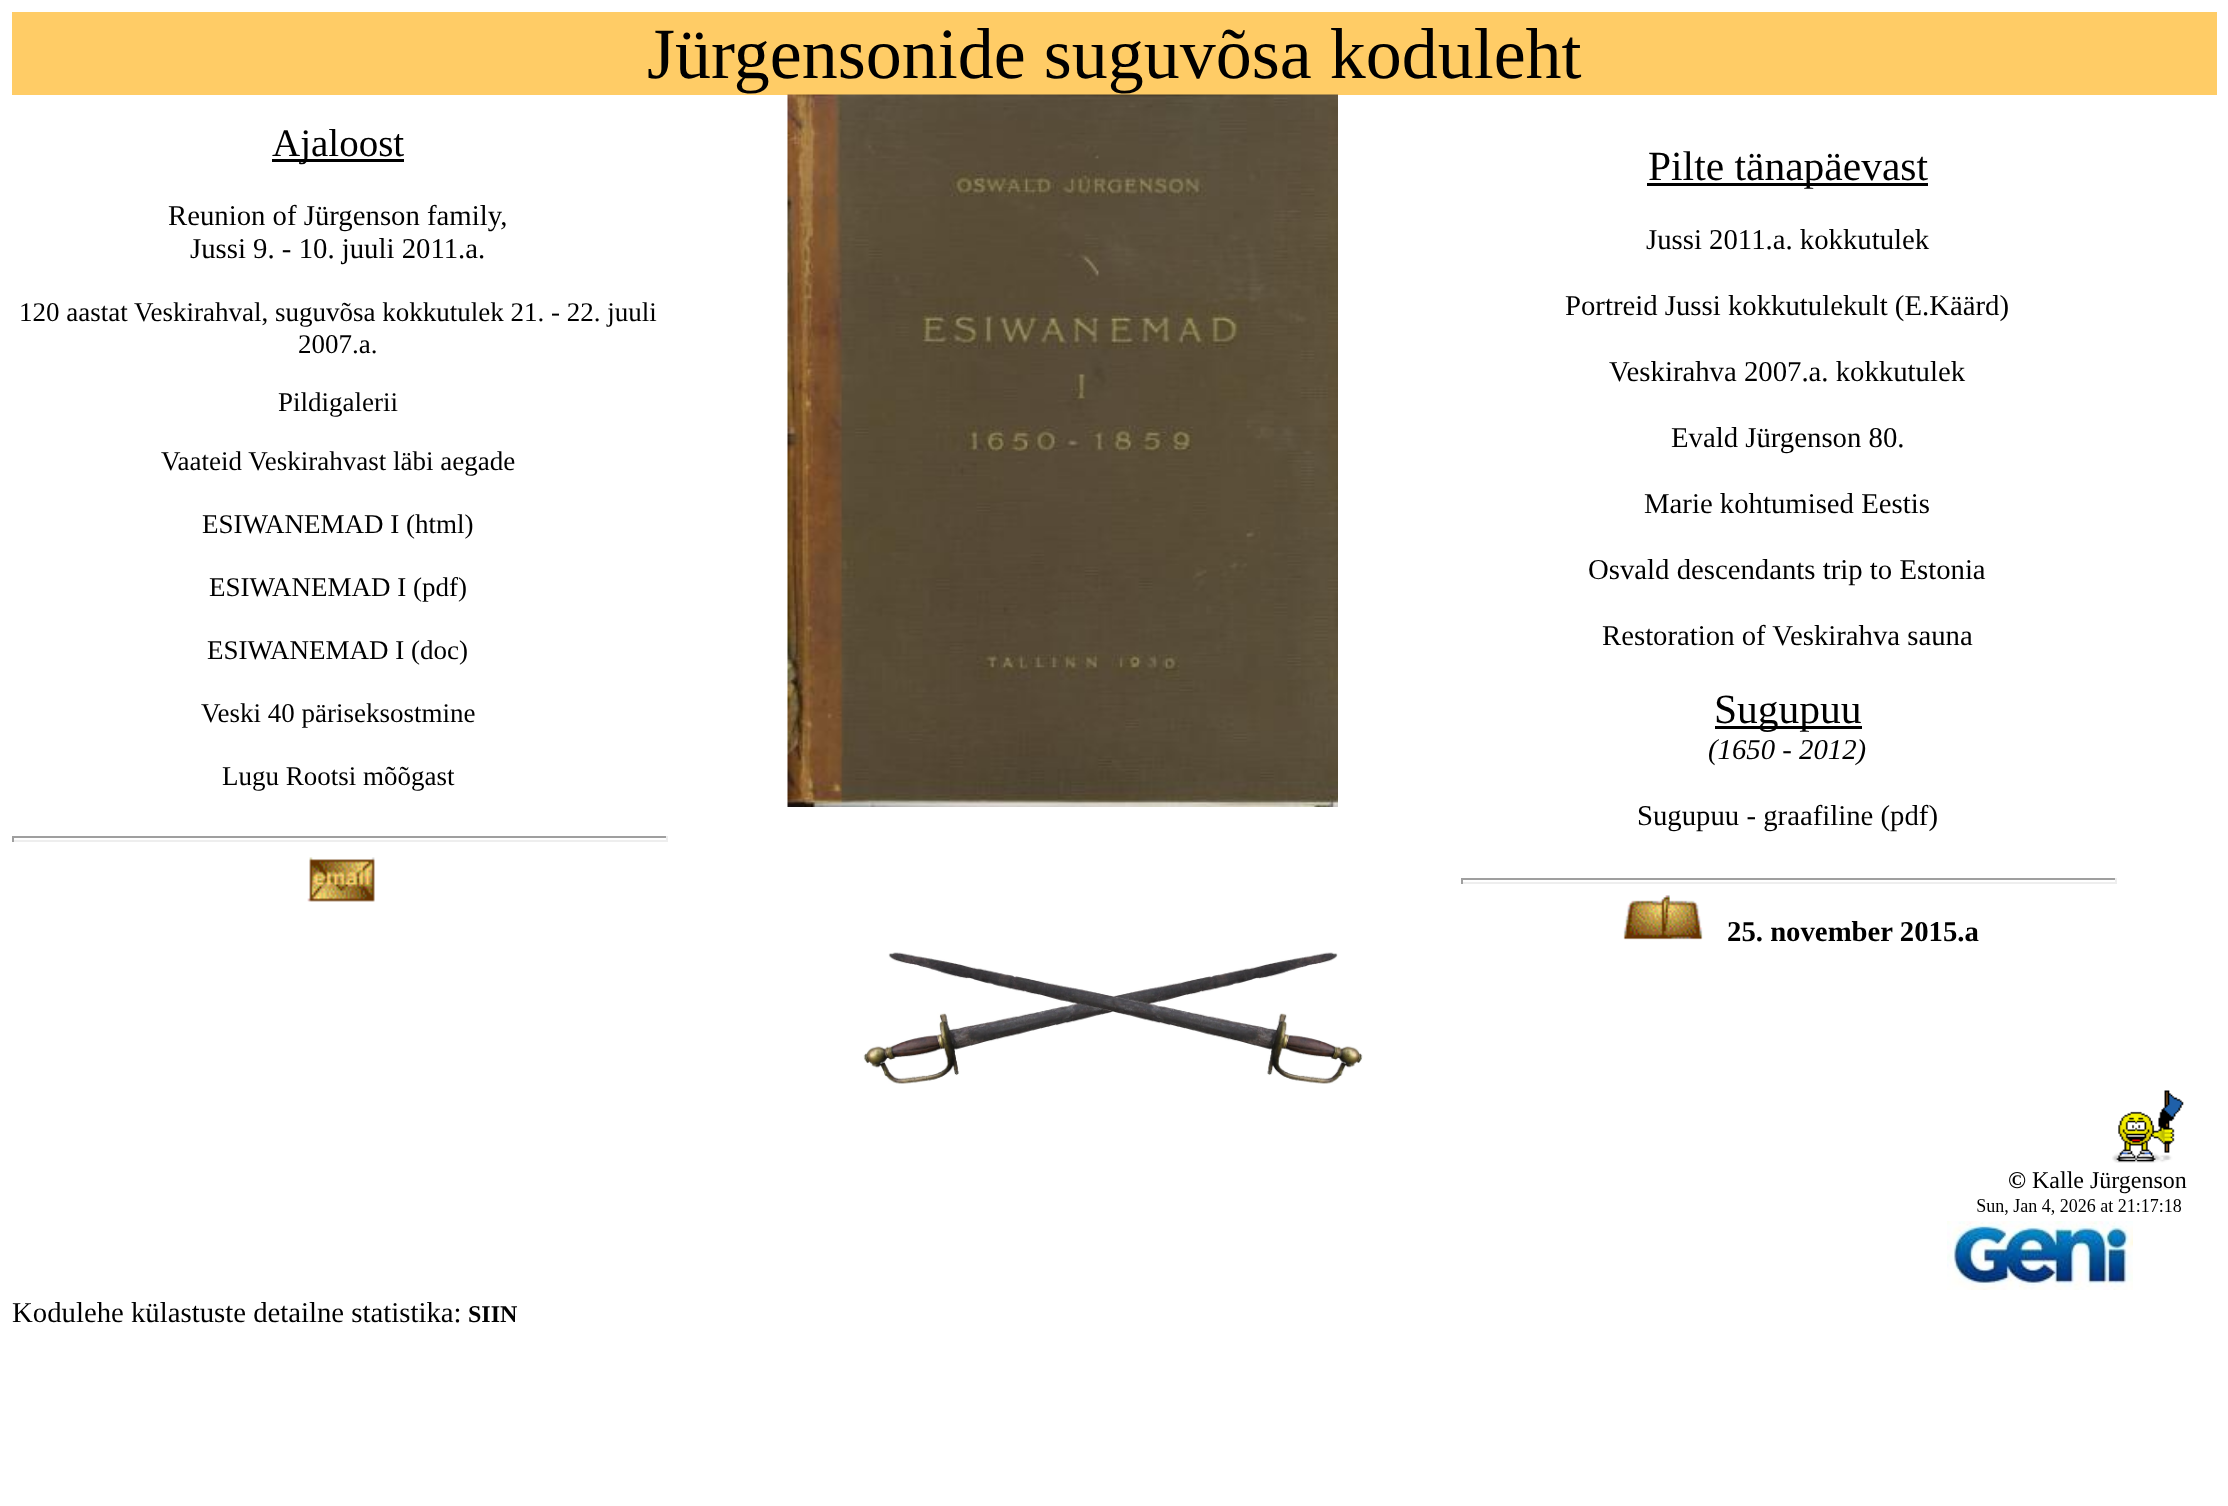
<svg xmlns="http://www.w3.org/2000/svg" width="2228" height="1506">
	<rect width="100%" height="100%" fill="#FFFFFF" />
	<rect x="12" y="12" width="2205" height="83" fill="#FFCC66" />
	<text x="647" y="78" font-family="Liberation Serif" font-size="72" fill="#000000">Jürgensonide suguvõsa koduleht</text>
	<rect x="272" y="159" width="132" height="3" fill="#000000" />
	<text x="272" y="156" font-family="Liberation Serif" font-size="39" fill="#000000">Ajaloost</text>
	<g font-family="Liberation Serif" font-size="28.75" fill="#000000">
		<text x="168" y="225">Reunion of Jürgenson family,</text>
		<text x="190" y="258">Jussi 9. - 10. juuli 2011.a.</text>
	</g>
	<g font-family="Liberation Serif" font-size="27" fill="#000000">
		<text x="19" y="321">120 aastat</text>
		<text x="134" y="321">Veskirahval, suguvõsa kokkutulek 21. - 22. juuli</text>
		<text x="298" y="353">2007.a.</text>
		<text x="278" y="411">Pildigalerii</text>
		<text x="161" y="470">Vaateid Veskirahvast läbi aegade</text>
		<text x="202" y="533">ESIWANEMAD I (html)</text>
		<text x="209" y="596">ESIWANEMAD I (pdf)</text>
		<text x="207" y="659">ESIWANEMAD I (doc)</text>
		<text x="201" y="722">Veski 40 päriseksostmine</text>
		<text x="222" y="785">Lugu Rootsi mõõgast</text>
	</g>
	<rect x="12" y="836" width="656" height="2" fill="#9F9F9F" />
	<rect x="666" y="836" width="2" height="6" fill="#EEEEEE" />
	<rect x="12" y="840" width="656" height="2" fill="#EEEEEE" />
	<rect x="12" y="836" width="2" height="6" fill="#9F9F9F" />
	<image x="307" y="857" width="68" height="45" href="assets/img1.png" />
	<image x="787" y="94" width="551" height="713" href="assets/img2.png" />
	<rect x="1647" y="183" width="281" height="3" fill="#000000" />
	<text x="1648" y="180" font-family="Liberation Serif" font-size="41.5" fill="#000000">Pilte tänapäevast</text>
	<g font-family="Liberation Serif" font-size="28.75" fill="#000000">
		<text x="1646" y="249">Jussi 2011.a. kokkutulek</text>
		<text x="1565" y="315">Portreid Jussi kokkutulekult (E.Käärd)</text>
		<text x="1609" y="381">Veskirahva 2007.a. kokkutulek</text>
		<text x="1671" y="447">Evald Jürgenson 80.</text>
		<text x="1644" y="513">Marie kohtumised Eestis</text>
		<text x="1588" y="579">Osvald descendants trip to Estonia</text>
		<text x="1602" y="645">Restoration of Veskirahva sauna</text>
	</g>
	<rect x="1715" y="726" width="147" height="3" fill="#000000" />
	<text x="1714" y="723" font-family="Liberation Serif" font-size="41.5" fill="#000000">Sugupuu</text>
	<text x="1708" y="759" font-family="Liberation Serif" font-size="28.75" font-style="italic" fill="#000000">(1650 - 2012)</text>
	<text x="1637" y="825" font-family="Liberation Serif" font-size="28.75" fill="#000000">Sugupuu - graafiline (pdf)</text>
	<rect x="1461" y="878" width="656" height="2" fill="#9F9F9F" />
	<rect x="2115" y="878" width="2" height="6" fill="#EEEEEE" />
	<rect x="1461" y="882" width="656" height="2" fill="#EEEEEE" />
	<rect x="1461" y="878" width="2" height="6" fill="#9F9F9F" />
	<image x="1623" y="895" width="80" height="45" href="assets/img3.png" />
	<text x="1727" y="941" font-family="Liberation Serif" font-size="28.75" font-weight="700" fill="#000000">25. november 2015.a</text>
	<image x="863" y="952" width="500" height="132" href="assets/img4.png" />
	<image x="2112" y="1090" width="72" height="73" href="assets/img5.png" />
	<text x="2008" y="1188" font-family="Liberation Serif" font-size="24" font-weight="700" fill="#000000">©</text>
	<text x="2032" y="1188" font-family="Liberation Serif" font-size="24" fill="#000000">Kalle Jürgenson</text>
	<image x="1977" y="1199" width="204" height="16" href="assets/img6.png" />
	<image x="1947" y="1221" width="186" height="69" href="assets/img7.png" />
	<text x="12" y="1322" font-family="Liberation Serif" font-size="28.75" fill="#000000">Kodulehe külastuste detailne statistika:</text>
	<text x="468" y="1322" font-family="Liberation Serif" font-size="24" font-weight="700" fill="#000000">SIIN</text>
</svg>
